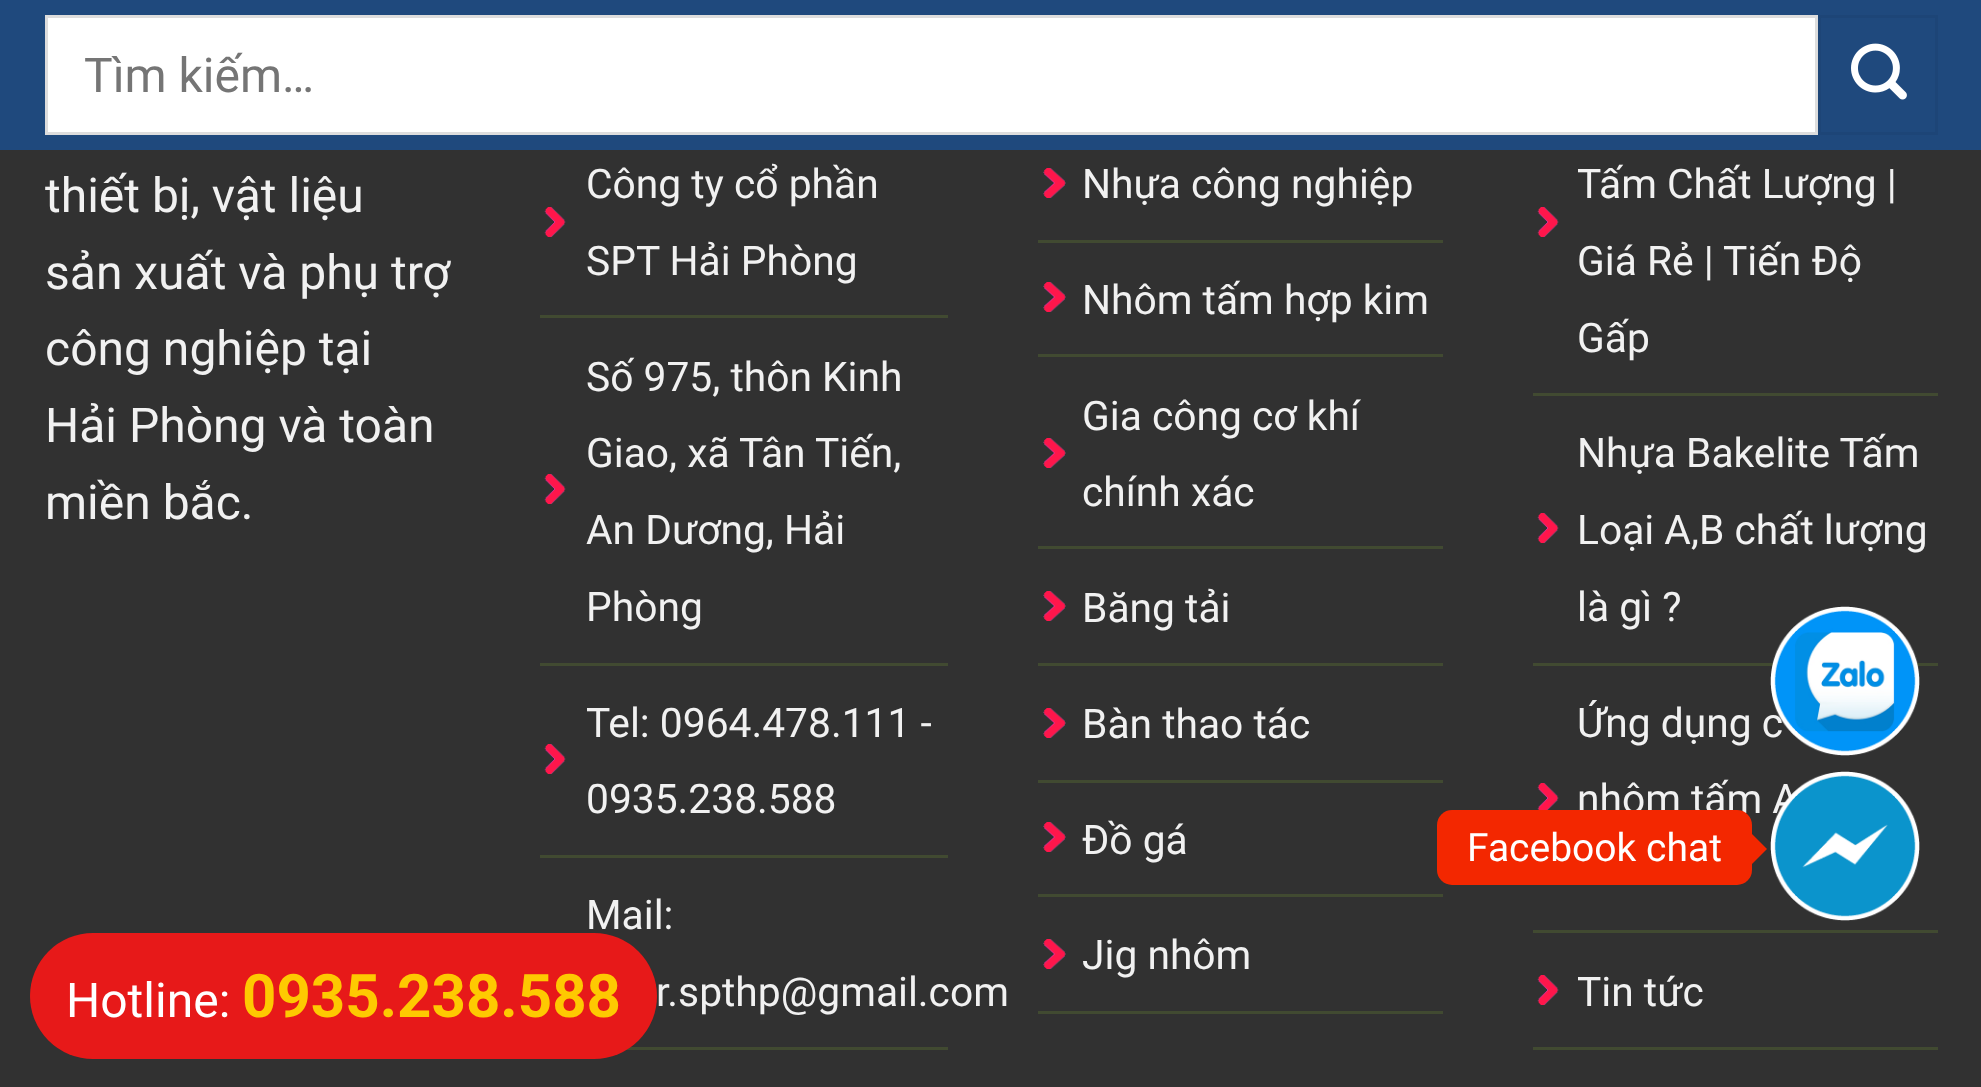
<svg xmlns="http://www.w3.org/2000/svg" width="1981" height="1087">
	<rect width="100%" height="100%" fill="#313131" />
	<rect x="0" y="0" width="1981" height="150" fill="#1F497D" />
	<rect x="46.5" y="16.5" width="1770" height="117" fill="#FFFFFF" stroke="#DDDDDD" stroke-width="3" />
	<text x="84" y="92" font-family="Roboto" font-size="48" fill="#757575">Tìm kiếm…</text>
	<rect x="1819.5" y="16.5" width="117" height="117" fill="none" stroke="#1D4577" stroke-width="3" />
	<image x="1851" y="43" width="56" height="57" href="assets/img1.png" />
	<g font-family="Roboto" font-size="48" fill="#F1F1F1">
		<text x="45" y="212">thiết bị, vật liệu</text>
		<text x="45" y="289">sản xuất và phụ trợ</text>
		<text x="45" y="365">công nghiệp tại</text>
		<text x="45" y="442">Hải Phòng và toàn</text>
		<text x="45" y="519">miền bắc.</text>
	</g>
	<image x="544" y="207" width="22" height="30" href="assets/img2.png" />
	<rect x="540" y="315" width="408" height="3" fill="#414A31" />
	<g font-family="Roboto" font-size="40.75" fill="#F1F1F1">
		<text x="586" y="198">Công ty cổ phần</text>
		<text x="586" y="275">SPT Hải Phòng</text>
	</g>
	<image x="544" y="474" width="22" height="30" href="assets/img2.png" />
	<rect x="540" y="663" width="408" height="3" fill="#414A31" />
	<g font-family="Roboto" font-size="40.75" fill="#F1F1F1">
		<text x="586" y="391">Số 975, thôn Kinh</text>
		<text x="586" y="467">Giao, xã Tân Tiến,</text>
		<text x="586" y="544">An Dương, Hải</text>
		<text x="586" y="621">Phòng</text>
	</g>
	<image x="544" y="744" width="22" height="30" href="assets/img2.png" />
	<rect x="540" y="855" width="408" height="3" fill="#414A31" />
	<g font-family="Roboto" font-size="40.75" fill="#F1F1F1">
		<text x="586" y="737">Tel: 0964.478.111 -</text>
		<text x="586" y="813">0935.238.588</text>
	</g>
	<rect x="626" y="1047" width="322" height="3" fill="#414A31" />
	<g font-family="Roboto" font-size="40.75" fill="#F1F1F1">
		<text x="586" y="929">Mail:</text>
		<text x="656" y="1006">r.spthp@gmail.com</text>
	</g>
	<image x="1043" y="168" width="23" height="30" href="assets/img3.png" />
	<rect x="1038" y="240" width="405" height="3" fill="#414A31" />
	<text x="1082" y="198" font-family="Roboto" font-size="40.75" fill="#F1F1F1">Nhựa công nghiệp</text>
	<image x="1043" y="282" width="23" height="30" href="assets/img3.png" />
	<rect x="1038" y="354" width="405" height="3" fill="#414A31" />
	<text x="1082" y="314" font-family="Roboto" font-size="40.75" fill="#F1F1F1">Nhôm tấm hợp kim</text>
	<image x="1043" y="438" width="23" height="30" href="assets/img3.png" />
	<rect x="1038" y="546" width="405" height="3" fill="#414A31" />
	<g font-family="Roboto" font-size="40.75" fill="#F1F1F1">
		<text x="1082" y="430">Gia công cơ khí</text>
		<text x="1082" y="506">chính xác</text>
	</g>
	<image x="1043" y="591" width="23" height="30" href="assets/img3.png" />
	<rect x="1038" y="663" width="405" height="3" fill="#414A31" />
	<text x="1082" y="622" font-family="Roboto" font-size="40.75" fill="#F1F1F1">Băng tải</text>
	<image x="1043" y="708" width="23" height="30" href="assets/img3.png" />
	<rect x="1038" y="780" width="405" height="3" fill="#414A31" />
	<text x="1082" y="738" font-family="Roboto" font-size="40.75" fill="#F1F1F1">Bàn thao tác</text>
	<image x="1043" y="822" width="23" height="30" href="assets/img3.png" />
	<rect x="1038" y="894" width="405" height="3" fill="#414A31" />
	<text x="1082" y="854" font-family="Roboto" font-size="40.75" fill="#F1F1F1">Đồ gá</text>
	<image x="1043" y="939" width="23" height="30" href="assets/img3.png" />
	<rect x="1038" y="1011" width="405" height="3" fill="#414A31" />
	<text x="1082" y="969" font-family="Roboto" font-size="40.75" fill="#F1F1F1">Jig nhôm</text>
	<image x="1537" y="207" width="22" height="30" href="assets/img4.png" />
	<rect x="1533" y="393" width="405" height="3" fill="#414A31" />
	<g font-family="Roboto" font-size="40.75" fill="#F1F1F1">
		<text x="1577" y="198">Tấm Chất Lượng |</text>
		<text x="1577" y="275">Giá Rẻ | Tiến Độ</text>
		<text x="1577" y="352">Gấp</text>
	</g>
	<image x="1537" y="513" width="22" height="30" href="assets/img5.png" />
	<rect x="1533" y="663" width="405" height="3" fill="#414A31" />
	<g font-family="Roboto" font-size="40.75" fill="#F1F1F1">
		<text x="1577" y="467">Nhựa Bakelite Tấm</text>
		<text x="1577" y="544">Loại A,B chất lượng</text>
		<text x="1577" y="621">là gì ?</text>
	</g>
	<image x="1537" y="783" width="22" height="27" href="assets/img6.png" />
	<rect x="1533" y="930" width="405" height="3" fill="#414A31" />
	<g font-family="Roboto" font-size="40.75" fill="#F1F1F1">
		<text x="1577" y="737">Ứng dụng c</text>
		<text x="1577" y="813">nhôm tấm A</text>
	</g>
	<image x="1537" y="975" width="22" height="30" href="assets/img4.png" />
	<rect x="1533" y="1047" width="405" height="3" fill="#414A31" />
	<text x="1577" y="1006" font-family="Roboto" font-size="40.75" fill="#F1F1F1">Tin tức</text>
	<image x="1770" y="606" width="150" height="150" href="assets/img7.png" />
	<rect x="1437" y="810" width="315" height="75" rx="15" fill="#F32700" />
	<text x="1467" y="861" font-family="Roboto" font-size="39" fill="#FFFFFF">Facebook chat</text>
	<path d="M1752 864V834L1767 849Z" fill="#F32700" />
	<image x="1770" y="771" width="150" height="150" href="assets/img8.png" />
	<rect x="30" y="933" width="627" height="126" rx="63" fill="#E71919" />
	<text x="66" y="1017" font-family="Roboto" font-size="48" fill="#FFFFFF">Hotline:</text>
	<text x="242" y="1017" font-family="Roboto" font-size="60" font-weight="700" fill="#FEC901">0935.238.588</text>
</svg>
